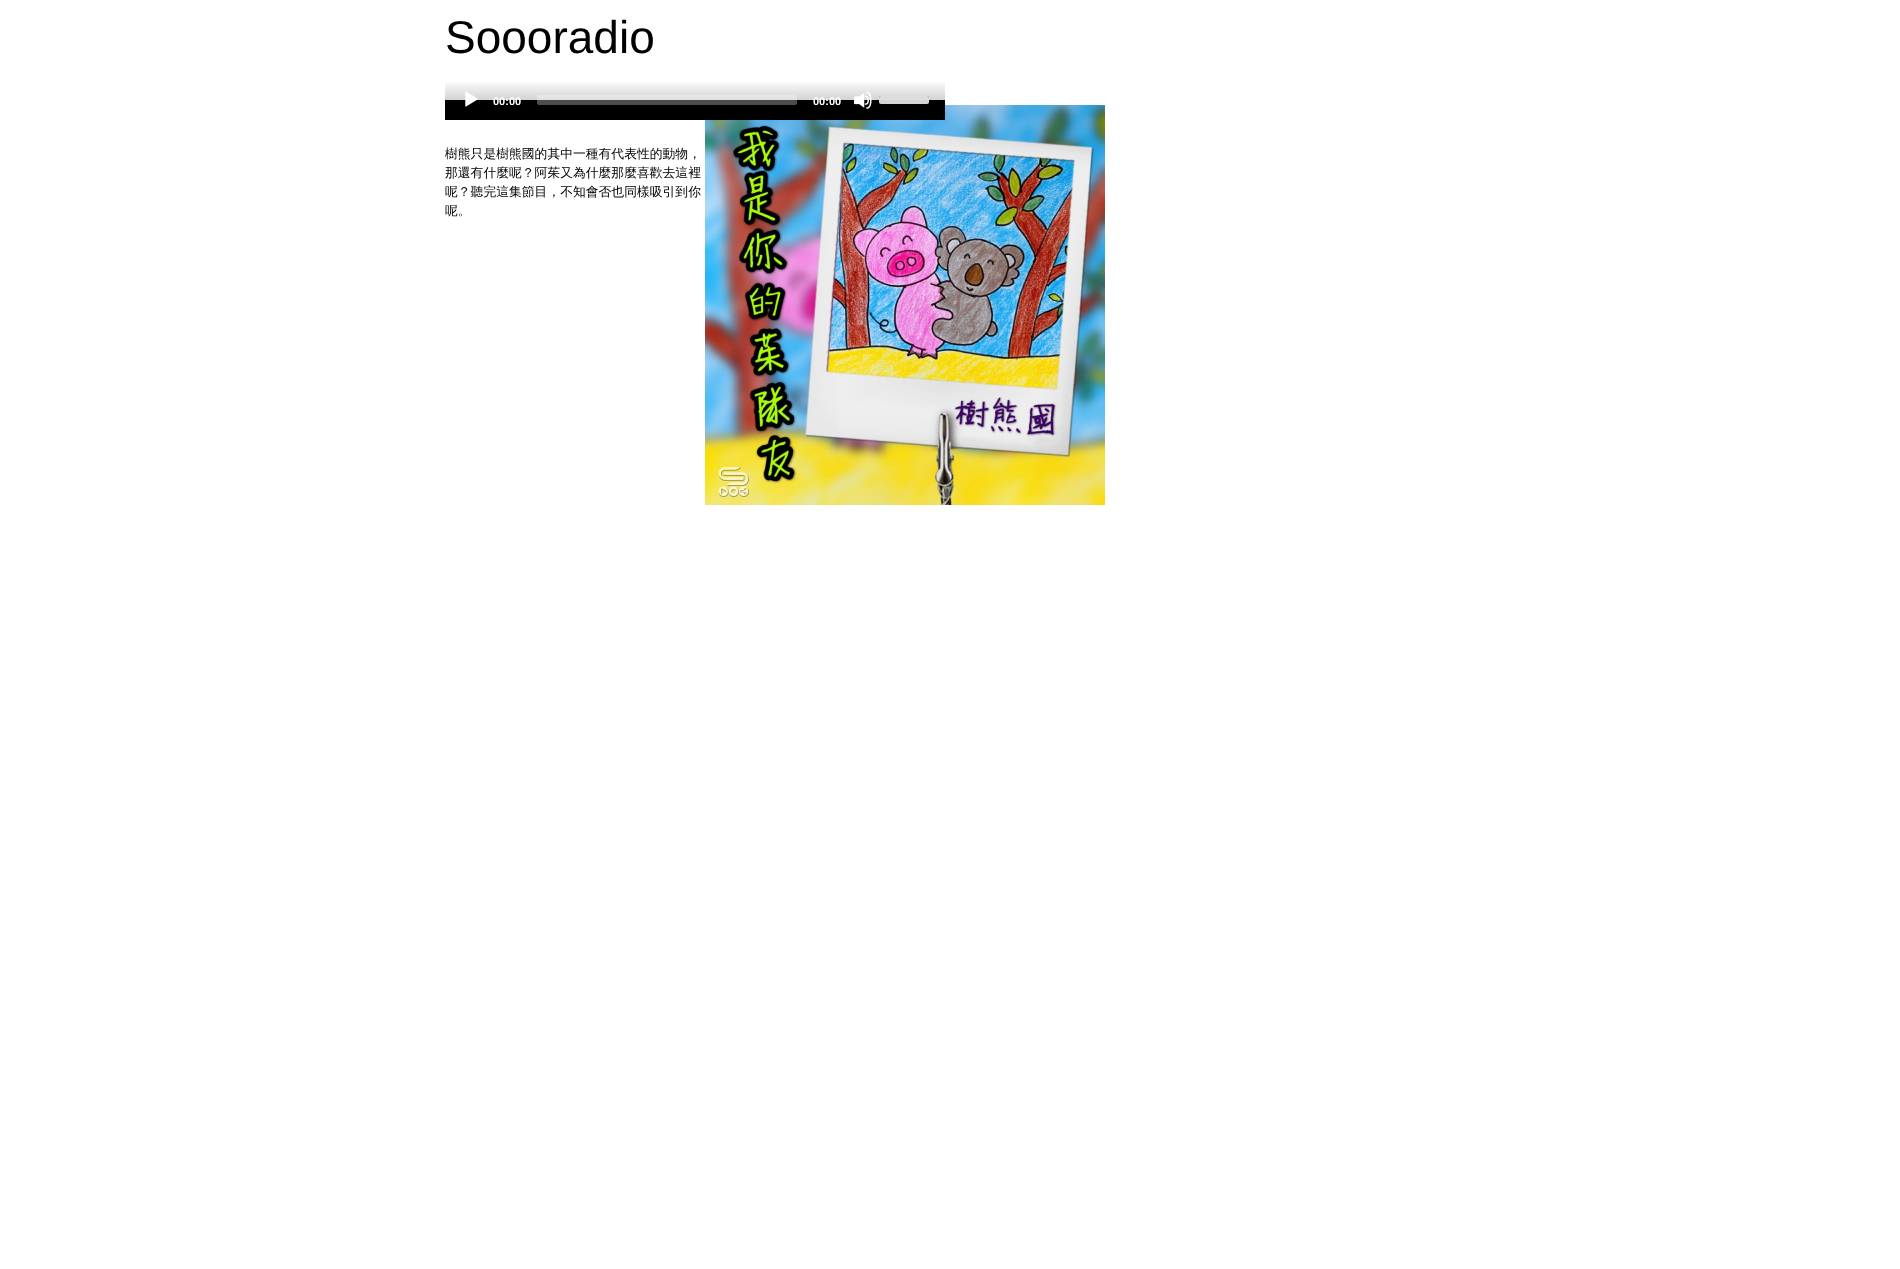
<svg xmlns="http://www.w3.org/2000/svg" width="1900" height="1269">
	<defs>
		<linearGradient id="g1" gradientUnits="userSpaceOnUse" x1="695" y1="80" x2="695" y2="120"><stop offset="0" stop-color="#000000" stop-opacity="0" /><stop offset="1" stop-color="#000000" stop-opacity="0.35" /></linearGradient>
	</defs>
	<rect width="100%" height="100%" fill="#FFFFFF" />
	<text x="445" y="53" font-family="Liberation Sans" font-size="46" fill="#000000">Soooradio</text>
	<image x="705" y="105" width="400" height="400" href="assets/img3.png" />
	<rect x="445" y="100" width="500" height="20" fill="#000000" />
	<rect x="445" y="82" width="500" height="18" fill="url(#g1)" />
	<image x="465" y="91" width="13" height="16" href="assets/img1.png" />
	<text x="493" y="105" font-family="Liberation Sans" font-size="11" font-weight="700" fill="#FFFFFF">00:00</text>
	<rect x="537" y="95" width="260" height="10" rx="2" fill="#FFFFFF" fill-opacity="0.3" />
	<text x="813" y="105" font-family="Liberation Sans" font-size="11" font-weight="700" fill="#FFFFFF">00:00</text>
	<image x="854" y="91" width="18" height="18" href="assets/img2.png" />
	<rect x="879" y="96" width="50" height="8" rx="2" fill="#323232" fill-opacity="0.8" />
	<rect x="879" y="96" width="50" height="8" rx="2" fill="#FFFFFF" fill-opacity="0.8" />
	<g font-family="WenQuanYi Zen Hei" font-size="12.8" font-weight="500" fill="#000000">
		<text x="445" y="158">樹熊只是樹熊國的其中一種有代表性的動物，</text>
		<text x="445" y="177">那還有什麼呢？阿茱又為什麼那麼喜歡去這裡</text>
		<text x="445" y="196">呢？聽完這集節目，不知會否也同樣吸引到你</text>
		<text x="445" y="215">呢。</text>
	</g>
</svg>
